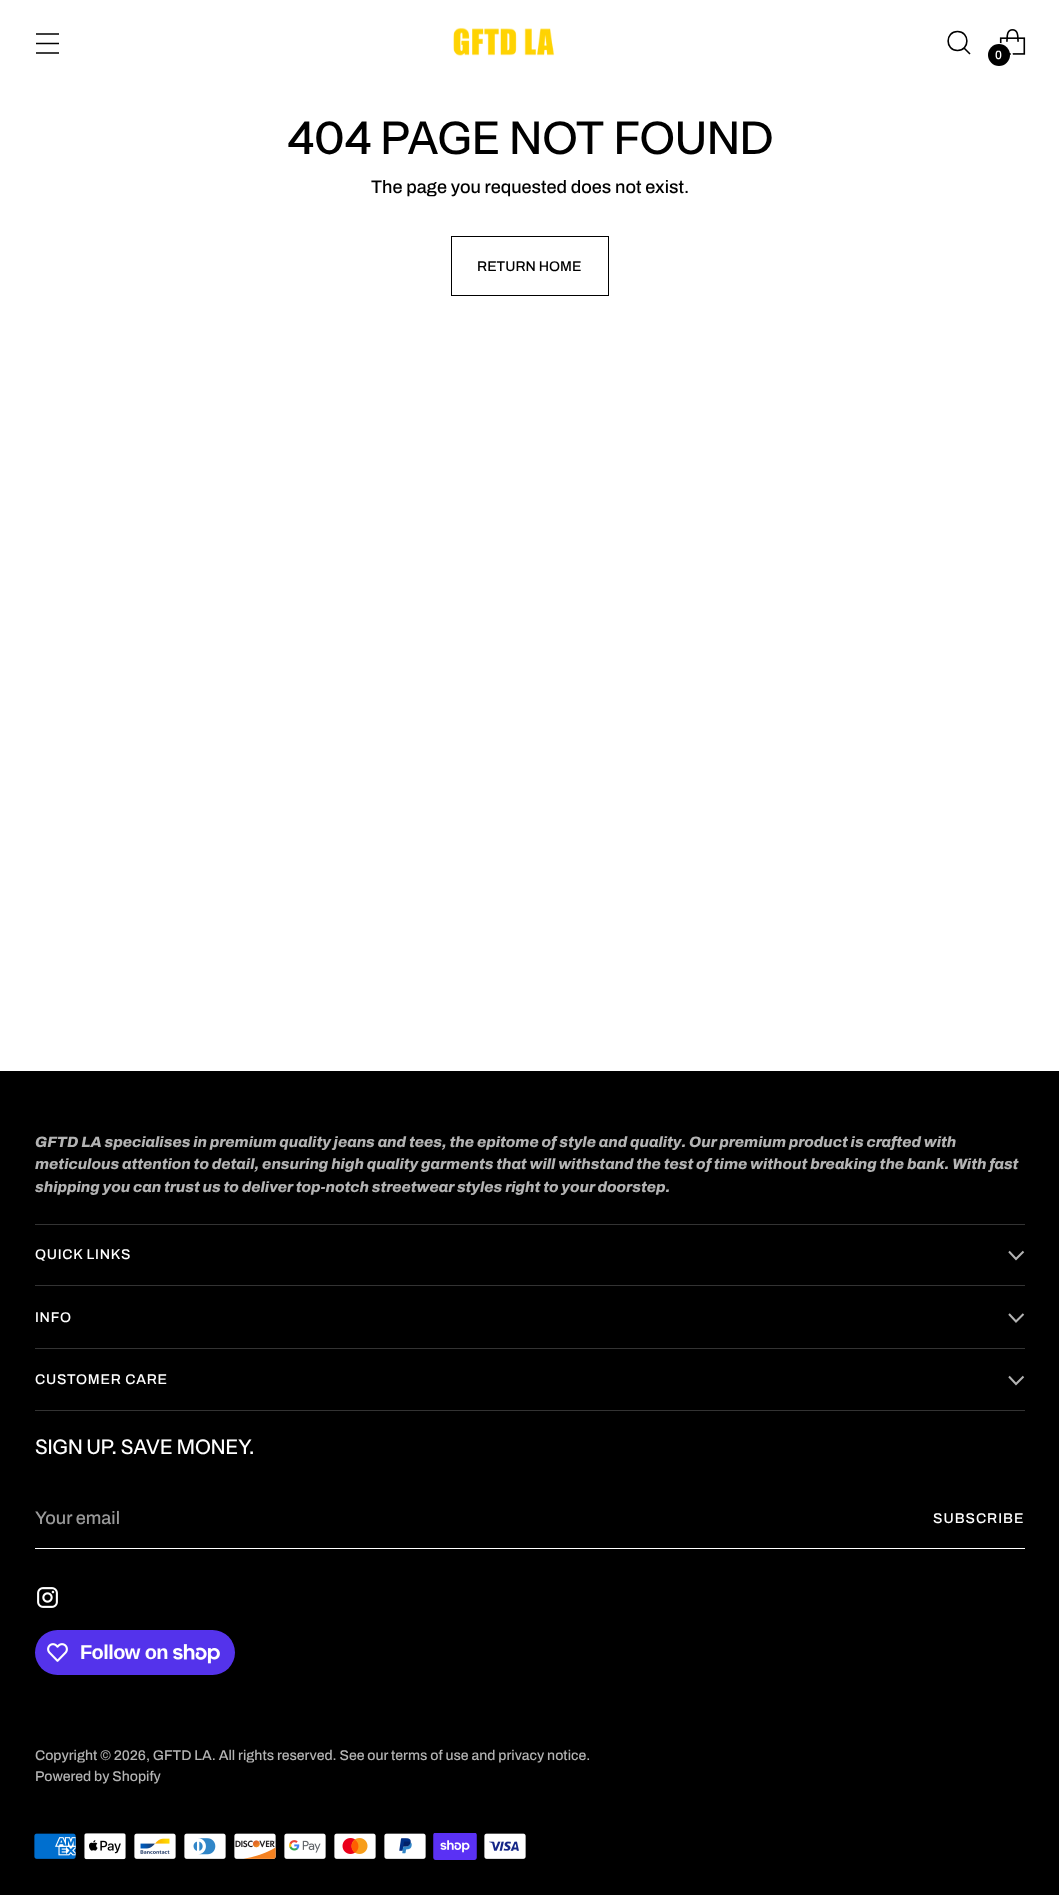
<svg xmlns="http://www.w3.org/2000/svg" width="1059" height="1895">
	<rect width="100%" height="100%" fill="#FFFFFF" />
	<path d="M36 43.5H59M36 34H59M36 53H59" fill="none" stroke="#000000" stroke-width="1.6" />
	<image x="453" y="27" width="102" height="29" href="assets/img1.png" />
	<path d="M957.5 50.5C970 50.5 970 31.5 957.5 31.5C945 31.5 945 50.5 957.5 50.5Z" fill="none" stroke="#000000" stroke-width="1.6" stroke-linecap="round" />
	<path d="M964 48L970 54" fill="none" stroke="#000000" stroke-width="1.6" />
	<image x="999" y="29" width="27" height="26" href="assets/img2.png" />
	<rect x="987" y="44" width="25" height="24" rx="12" fill="none" stroke="#FFFFFF" stroke-width="2" />
	<circle cx="999" cy="55" r="11" fill="#000000" />
	<text x="995" y="59" font-family="Archivo" font-size="12" font-weight="500" fill="#FFFFFF">0</text>
	<text x="287" y="154" font-family="Instrument Sans" font-size="45" font-weight="500" fill="#000000">404 PAGE NOT FOUND</text>
	<text x="371" y="193" font-family="Archivo" font-size="18.1" font-weight="500" fill="#000000">The page you requested does not exist.</text>
	<rect x="451.5" y="236.5" width="157" height="59" fill="none" stroke="#000000" />
	<text x="477" y="271" font-family="Archivo" font-size="14.05" font-weight="500" fill="#000000">RETURN HOME</text>
	<rect x="0" y="1071" width="1059" height="824" fill="#000000" />
	<rect x="35" y="1224" width="990" height="1" fill="#333333" />
	<g font-family="Archivo" font-size="15.02" font-weight="800" font-style="italic" fill="#B3B3B3">
		<text x="35" y="1147">GFTD LA specialises in premium quality jeans and tees, the epitome of style and quality. Our premium product is crafted with</text>
		<text x="35" y="1169">meticulous attention to detail, ensuring high quality garments that will withstand the test of time without breaking the bank. With fast</text>
		<text x="35" y="1192">shipping you can trust us to deliver top-notch streetwear styles right to your doorstep.</text>
	</g>
	<rect x="35" y="1285" width="990" height="1" fill="#333333" />
	<text x="35" y="1259" font-family="Archivo" font-size="14.05" font-weight="500" letter-spacing="0.75" fill="#FFFFFF">QUICK LINKS</text>
	<path d="M1009 1251.5L1016 1259L1023.5 1251.5" fill="none" stroke="#B3B3B3" stroke-width="2" />
	<rect x="35" y="1348" width="990" height="1" fill="#333333" />
	<text x="35" y="1322" font-family="Archivo" font-size="14.05" font-weight="500" letter-spacing="0.75" fill="#FFFFFF">INFO</text>
	<path d="M1009 1314L1016 1321.5L1023.5 1314" fill="none" stroke="#B3B3B3" stroke-width="2" />
	<rect x="35" y="1410" width="990" height="1" fill="#333333" />
	<text x="35" y="1384" font-family="Archivo" font-size="14.05" font-weight="500" letter-spacing="0.75" fill="#FFFFFF">CUSTOMER CARE</text>
	<path d="M1009 1376.5L1016 1384L1023.5 1376.5" fill="none" stroke="#B3B3B3" stroke-width="2" />
	<text x="35" y="1454" font-family="Instrument Sans" font-size="20.1" font-weight="500" fill="#FFFFFF">SIGN UP. SAVE MONEY.</text>
	<rect x="35" y="1548" width="990" height="1" fill="#FFFFFF" />
	<text x="35" y="1524" font-family="Archivo" font-size="18.1" font-weight="500" fill="#999999">Your email</text>
	<text x="933" y="1523" font-family="Archivo" font-size="14.05" font-weight="500" letter-spacing="1" fill="#FFFFFF">SUBSCRIBE</text>
	<image x="37" y="1587" width="21" height="21" href="assets/img3.png" />
	<rect x="35" y="1630" width="200" height="45" rx="22.5" fill="#5433EB" />
	<image x="47" y="1643" width="21" height="19" href="assets/img4.png" />
	<text x="80" y="1659" font-family="Liberation Sans" font-size="20" font-weight="700" letter-spacing="-0.6" fill="#FFFFFF">Follow on</text>
	<image x="173" y="1644" width="47" height="20" href="assets/img5.png" />
	<g font-family="Archivo" font-size="14.05" font-weight="500" fill="#B3B3B3">
		<text x="35" y="1760">Copyright © 2026, GFTD LA. All rights reserved. See our terms of use and privacy notice.</text>
		<text x="35" y="1781">Powered by Shopify</text>
	</g>
	<image x="34" y="1833" width="42" height="26" href="assets/img6.png" />
	<image x="84" y="1833" width="42" height="27" href="assets/img7.png" />
	<image x="134" y="1833" width="42" height="26" href="assets/img8.png" />
	<image x="184" y="1833" width="42" height="26" href="assets/img9.png" />
	<image x="234" y="1833" width="42" height="26" href="assets/img10.png" />
	<image x="284" y="1833" width="42" height="26" href="assets/img11.png" />
	<image x="334" y="1833" width="42" height="26" href="assets/img12.png" />
	<image x="384" y="1833" width="42" height="26" href="assets/img13.png" />
	<image x="433" y="1833" width="44" height="27" href="assets/img14.png" />
	<image x="484" y="1833" width="42" height="26" href="assets/img15.png" />
</svg>
